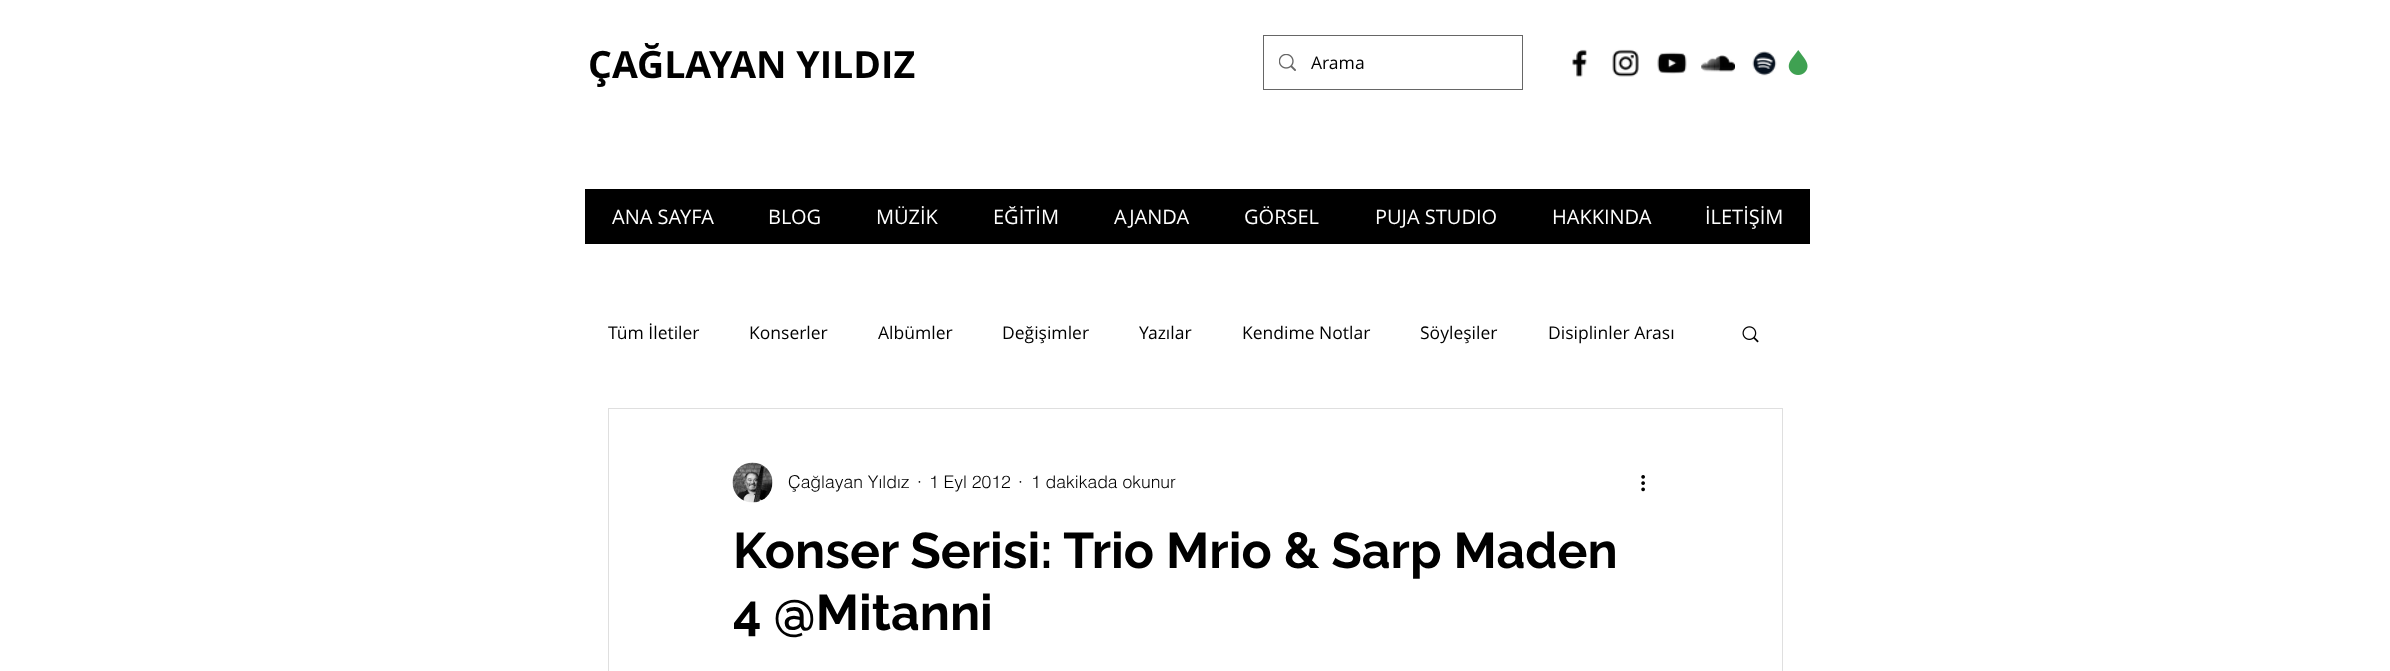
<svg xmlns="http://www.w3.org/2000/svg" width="2390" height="671">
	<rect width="100%" height="100%" fill="#FFFFFF" />
	<text x="588" y="78" font-family="Open Sans" font-size="37.5" font-weight="700" fill="#000000">ÇAĞLAYAN YILDIZ</text>
	<rect x="1263.5" y="35.5" width="259" height="54" fill="none" stroke="#666666" />
	<image x="1279" y="54" width="17" height="17" href="assets/img1.png" />
	<text x="1311" y="69" font-family="Open Sans" font-size="17.5" fill="#000000">Arama</text>
	<image x="1572" y="49" width="15" height="28" href="assets/img2.png" />
	<image x="1612" y="49" width="27" height="28" href="assets/img3.png" />
	<image x="1657" y="52" width="30" height="22" href="assets/img4.png" />
	<image x="1701" y="55" width="34" height="17" href="assets/img5.png" />
	<image x="1752" y="51" width="25" height="25" href="assets/img6.png" />
	<image x="1788" y="50" width="20" height="25" href="assets/img7.png" />
	<rect x="585" y="189" width="1225" height="55" fill="#000000" />
	<g font-family="Open Sans" font-size="20" fill="#FFFFFF">
		<text x="612" y="224">ANA SAYFA</text>
		<text x="768" y="224">BLOG</text>
		<text x="876" y="224">MÜZİK</text>
		<text x="993" y="224">EĞİTİM</text>
		<text x="1114" y="224">AJANDA</text>
		<text x="1244" y="224">GÖRSEL</text>
		<text x="1375" y="224">PUJA STUDIO</text>
		<text x="1552" y="224">HAKKINDA</text>
		<text x="1705" y="224">İLETİŞİM</text>
	</g>
	<g font-family="Open Sans" font-size="17.5" fill="#000000">
		<text x="608" y="339">Tüm İletiler</text>
		<text x="749" y="339">Konserler</text>
		<text x="878" y="339">Albümler</text>
		<text x="1002" y="339">Değişimler</text>
		<text x="1139" y="339">Yazılar</text>
		<text x="1242" y="339">Kendime Notlar</text>
		<text x="1420" y="339">Söyleşiler</text>
		<text x="1548" y="339">Disiplinler Arası</text>
	</g>
	<image x="1742" y="326" width="17" height="17" href="assets/img8.png" />
	<rect x="608.5" y="408.5" width="1174" height="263" fill="none" stroke="#DFDFDF" />
	<image x="732" y="462" width="41" height="41" href="assets/img9.png" />
	<g font-family="helvetica" font-size="17.5" font-weight="300" fill="#000000">
		<text x="788" y="488">Çağlayan Yıldız</text>
		<text x="917" y="488">·</text>
		<text x="929" y="488">1 Eyl 2012</text>
		<text x="1018" y="488">·</text>
		<text x="1031" y="488">1 dakikada okunur</text>
	</g>
	<image x="1641" y="475" width="4" height="17" href="assets/img10.png" />
	<g font-family="Raleway" font-size="50" font-weight="700" fill="#000000">
		<text x="733" y="568">Konser Serisi: Trio Mrio &amp; Sarp Maden</text>
		<text x="733" y="630">4 @Mitanni</text>
	</g>
</svg>
